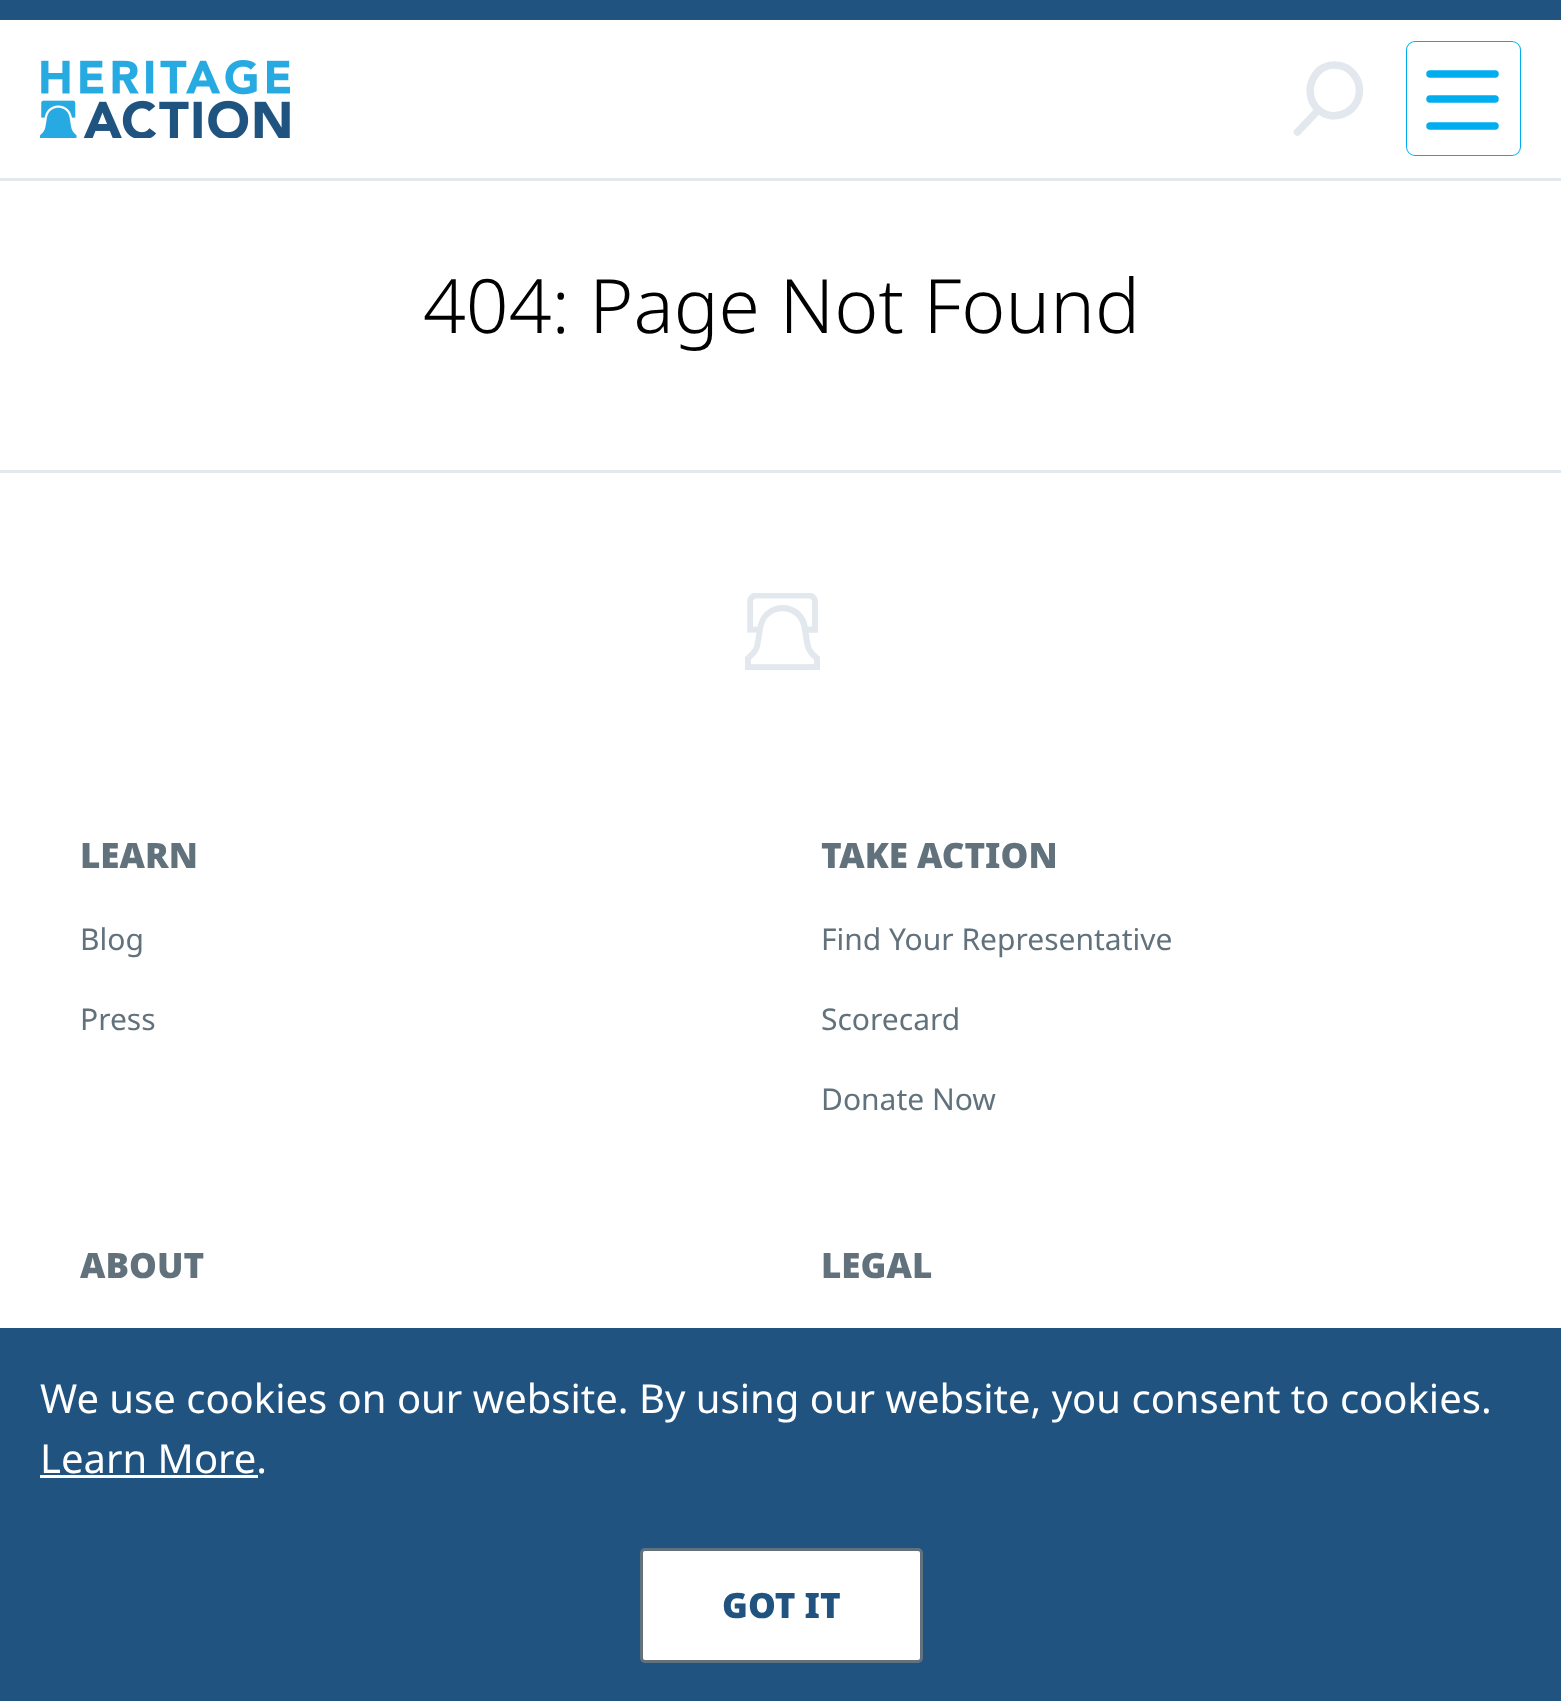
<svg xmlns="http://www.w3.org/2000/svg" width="1561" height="1701">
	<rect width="100%" height="100%" fill="#FFFFFF" />
	<rect x="0" y="0" width="1561" height="20" fill="#215380" />
	<rect x="0" y="178" width="1561" height="3" fill="#E2E8ED" />
	<image x="40" y="60" width="250" height="78" href="assets/img1.png" />
	<path d="M1317 108.5C1334.5 126 1363.5 109.5 1359 85.5C1358 80.5 1355.5 76 1352 72.5C1349 69 1344.5 66.5 1339.5 65.5C1315 60.5 1301 91 1317 108.5ZM1316.5 112L1297.5 132" fill="none" stroke="#E2E8ED" stroke-width="7.5" stroke-linecap="round" />
	<rect x="1407.25" y="42.25" width="112.5" height="112.5" rx="7.75" fill="none" stroke="#00AEEF" stroke-width="2.5" />
	<rect x="1410.75" y="45.75" width="105.5" height="105.5" rx="4.25" fill="none" stroke="#FFFFFF" stroke-width="7.5" />
	<path d="M1495 74H1430M1495 126H1430M1495 99H1430" fill="none" stroke="#00AEEF" stroke-width="7.5" stroke-linecap="round" />
	<text x="423" y="333" font-family="Noto Sans" font-size="75" font-weight="300" fill="#000000">404: Page Not Found</text>
	<rect x="0" y="470" width="1561" height="3" fill="#E2E8ED" />
	<image x="745" y="593" width="75" height="77" href="assets/img2.png" />
	<text x="80" y="868" font-family="Noto Sans" font-size="35" font-weight="900" fill="#62727D">LEARN</text>
	<g font-family="Noto Sans" font-size="30" fill="#62727D">
		<text x="80" y="950">Blog</text>
		<text x="80" y="1030">Press</text>
	</g>
	<text x="821" y="868" font-family="Noto Sans" font-size="35" font-weight="900" fill="#62727D">TAKE ACTION</text>
	<g font-family="Noto Sans" font-size="30" fill="#62727D">
		<text x="821" y="950">Find Your Representative</text>
		<text x="821" y="1030">Scorecard</text>
		<text x="821" y="1110">Donate Now</text>
	</g>
	<g font-family="Noto Sans" font-size="35" font-weight="900" fill="#62727D">
		<text x="80" y="1278">ABOUT</text>
		<text x="821" y="1278">LEGAL</text>
	</g>
	<rect x="0" y="1328" width="1561" height="373" fill="#215380" />
	<g font-family="Noto Sans" font-size="40" fill="#FFFFFF">
		<text x="40" y="1413">We use cookies on our website. By using our website, you consent to cookies.</text>
		<text x="40" y="1473">Learn More.</text>
	</g>
	<rect x="40" y="1475" width="218" height="3" fill="#FFFFFF" />
	<rect x="641.5" y="1549.5" width="280" height="112" rx="3.5" fill="#FFFFFF" stroke="#62727D" stroke-width="3" />
	<text x="722" y="1618" font-family="Noto Sans" font-size="35" font-weight="900" fill="#215380">GOT IT</text>
</svg>
